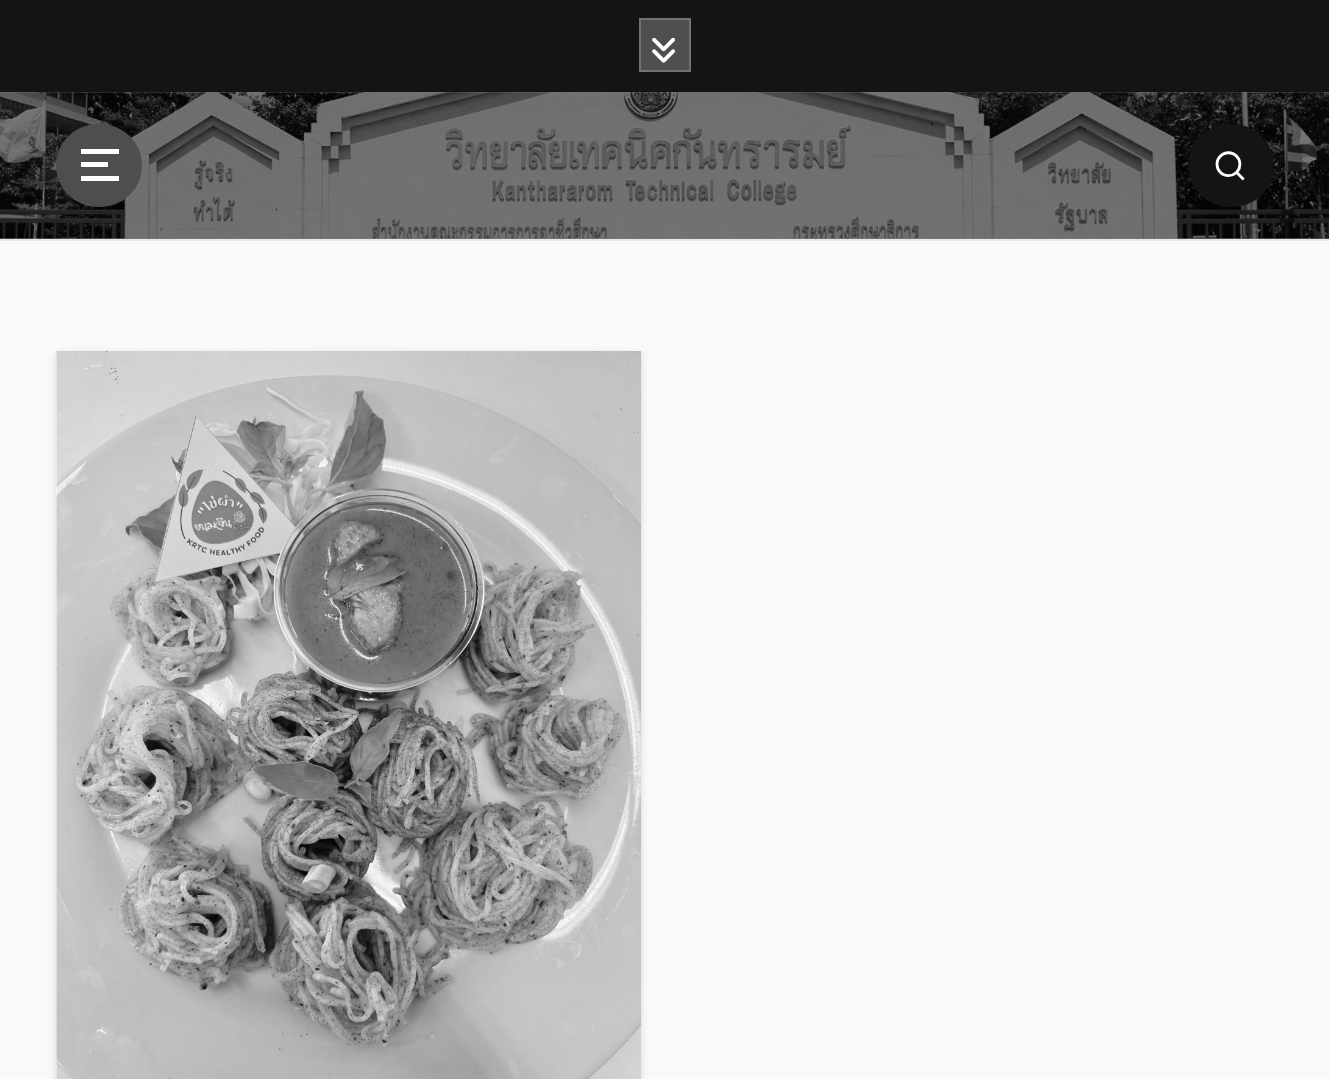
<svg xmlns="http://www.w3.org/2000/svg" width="1329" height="1079">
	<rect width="100%" height="100%" fill="#F9F9F9" />
	<rect x="0" y="0" width="1329" height="92" fill="#141414" />
	<rect x="640" y="19" width="50" height="52" fill="#4F4F4F" stroke="#727272" stroke-width="2" />
	<image x="652" y="37" width="23" height="26" href="assets/img1.png" />
	<path d="M0 238V241H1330V95V238Z" fill="#000000" fill-opacity="0.07" />
	<rect x="0" y="92" width="1329" height="147" fill="#FFFFFF" />
	<image x="0" y="92" width="1329" height="147" href="assets/img2.png" />
	<rect x="0" y="92" width="1329" height="147" fill="#000000" fill-opacity="0.5" />
	<rect x="56" y="124" width="86" height="83" rx="41.5" fill="#4E4E4E" />
	<rect x="81" y="149" width="38" height="5" fill="#FFFFFF" />
	<rect x="81" y="162" width="27" height="5" fill="#FFFFFF" />
	<rect x="81" y="176" width="38" height="5" fill="#FFFFFF" />
	<rect x="1188" y="128" width="86" height="84" rx="42" fill="#000000" fill-opacity="0.15" filter="blur(4.5px)" />
	<rect x="1188" y="124" width="86" height="83" rx="41.5" fill="#141414" />
	<image x="1215" y="151" width="30" height="30" href="assets/img3.png" />
	<rect x="56" y="353" width="585" height="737" fill="#000000" fill-opacity="0.12" filter="blur(3.5px)" />
	<rect x="56" y="351" width="1" height="728" fill="#FFFFFF" />
	<image x="56" y="351" width="586" height="728" href="assets/img4.png" />
</svg>
